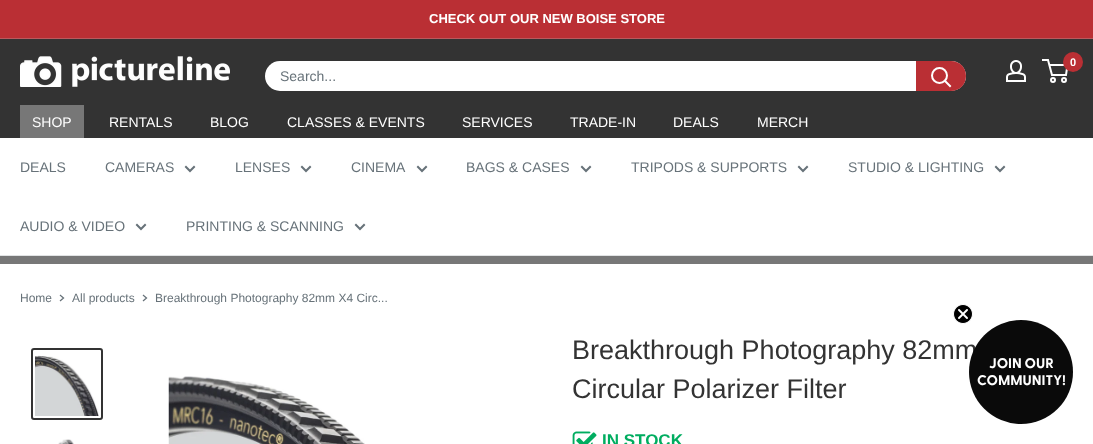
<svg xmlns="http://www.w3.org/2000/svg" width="1093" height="444">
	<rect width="100%" height="100%" fill="#FFFFFF" />
	<rect x="0" y="0" width="1093" height="38" fill="#BA2F34" />
	<rect x="0" y="38" width="1093" height="1" fill="#BA595D" />
	<text x="429" y="23" font-family="Liberation Sans" font-size="13" font-weight="700" fill="#FFFFFF">CHECK OUT OUR NEW BOISE STORE</text>
	<rect x="0" y="39" width="1093" height="99" fill="#333333" />
	<image x="20" y="56" width="210" height="31" href="assets/img1.png" />
	<image x="1006" y="60" width="20" height="22" href="assets/img2.png" />
	<circle cx="1053" cy="80" r="2" fill="none" stroke="#FFFFFF" stroke-width="2" />
	<circle cx="1064" cy="80" r="2" fill="none" stroke="#FFFFFF" stroke-width="2" />
	<path d="M1049.5 65H1067.5L1066 75H1052L1048 60H1042" fill="none" stroke="#FFFFFF" stroke-width="2" />
	<circle cx="1073" cy="62" r="10" fill="#BA2F34" />
	<text x="1070" y="66" font-family="Liberation Sans" font-size="11" font-weight="700" fill="#FFFFFF">0</text>
	<rect x="265" y="61" width="701" height="30" rx="15" fill="#FFFFFF" />
	<text x="280" y="81" font-family="Liberation Sans" font-size="14" fill="#677279">Search...</text>
	<path d="M916 61H951C959.5 61 966 67.5 966 76C966 84.5 959.5 91 951 91H916Z" fill="#BA2F34" />
	<path d="M950 86L945 81" fill="none" stroke="#FFFFFF" stroke-width="2" stroke-linecap="square" />
	<circle cx="939.5" cy="75.5" r="7.5" fill="none" stroke="#FFFFFF" stroke-width="2" />
	<rect x="20" y="105" width="64" height="33" fill="#777777" />
	<g font-family="Liberation Sans" font-size="14" fill="#FFFFFF">
		<text x="32" y="127">SHOP</text>
		<text x="109" y="127">RENTALS</text>
		<text x="210" y="127">BLOG</text>
		<text x="287" y="127">CLASSES &amp; EVENTS</text>
		<text x="462" y="127">SERVICES</text>
		<text x="570" y="127">TRADE-IN</text>
		<text x="673" y="127">DEALS</text>
		<text x="757" y="127">MERCH</text>
	</g>
	<rect x="0" y="255" width="1093" height="1" fill="#E1E3E4" />
	<g font-family="Liberation Sans" font-size="14" fill="#677279">
		<text x="20" y="172">DEALS</text>
		<text x="105" y="172">CAMERAS</text>
	</g>
	<path d="M194 167L190 171L186 167" fill="none" stroke="#677279" stroke-width="2" stroke-linecap="square" />
	<text x="235" y="172" font-family="Liberation Sans" font-size="14" fill="#677279">LENSES</text>
	<path d="M310 167L306 171L302 167" fill="none" stroke="#677279" stroke-width="2" stroke-linecap="square" />
	<text x="351" y="172" font-family="Liberation Sans" font-size="14" fill="#677279">CINEMA</text>
	<path d="M426 167L422 171L418 167" fill="none" stroke="#677279" stroke-width="2" stroke-linecap="square" />
	<text x="466" y="172" font-family="Liberation Sans" font-size="14" fill="#677279">BAGS &amp; CASES</text>
	<path d="M590 167L586 171L582 167" fill="none" stroke="#677279" stroke-width="2" stroke-linecap="square" />
	<text x="631" y="172" font-family="Liberation Sans" font-size="14" fill="#677279">TRIPODS &amp; SUPPORTS</text>
	<path d="M807 167L803 171L799 167" fill="none" stroke="#677279" stroke-width="2" stroke-linecap="square" />
	<text x="848" y="172" font-family="Liberation Sans" font-size="14" fill="#677279">STUDIO &amp; LIGHTING</text>
	<path d="M1004 167L1000 171L996 167" fill="none" stroke="#677279" stroke-width="2" stroke-linecap="square" />
	<text x="20" y="231" font-family="Liberation Sans" font-size="14" fill="#677279">AUDIO &amp; VIDEO</text>
	<path d="M145 225L141 229L137 225" fill="none" stroke="#677279" stroke-width="2" stroke-linecap="square" />
	<text x="186" y="231" font-family="Liberation Sans" font-size="14" fill="#677279">PRINTING &amp; SCANNING</text>
	<path d="M364 225L360 229L356 225" fill="none" stroke="#677279" stroke-width="2" stroke-linecap="square" />
	<rect x="0" y="256" width="1093" height="8" fill="#777777" />
	<text x="20" y="302" font-family="Liberation Sans" font-size="12" fill="#677279">Home</text>
	<path d="M60.5 295.5L63.5 298L60.5 300.5" fill="none" stroke="#677279" stroke-width="1.3" stroke-linecap="square" />
	<text x="72" y="302" font-family="Liberation Sans" font-size="12" fill="#677279">All products</text>
	<path d="M143.5 295.5L146.5 298L143.5 300.5" fill="none" stroke="#677279" stroke-width="1.3" stroke-linecap="square" />
	<text x="155" y="302" font-family="Liberation Sans" font-size="12" fill="#677279">Breakthrough Photography 82mm X4 Circ...</text>
	<rect x="32" y="349" width="70" height="70" rx="2" fill="none" stroke="#333333" stroke-width="2" />
	<image x="35" y="355" width="64" height="61" href="assets/img3.png" />
	<image x="58" y="439" width="16" height="5" href="assets/img4.png" />
	<image x="168" y="376" width="197" height="68" href="assets/img5.png" />
	<g font-family="Liberation Sans" font-size="27" fill="#333333">
		<text x="572" y="359">Breakthrough Photography 82mm</text>
		<text x="572" y="398">Circular Polarizer Filter</text>
	</g>
	<image x="572" y="431" width="25" height="13" href="assets/img6.png" />
	<text x="602" y="446" font-family="Liberation Sans" font-size="17" font-weight="700" fill="#00AD60">IN STOCK</text>
	<circle cx="1021" cy="372" r="52" fill="#0A0A0A" />
	<image x="953" y="304" width="20" height="20" href="assets/img7.png" />
	<g font-family="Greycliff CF" font-size="14" font-weight="700" fill="#FFFFFF">
		<text x="989" y="368">JOIN OUR</text>
		<text x="977" y="385">COMMUNITY!</text>
	</g>
</svg>
